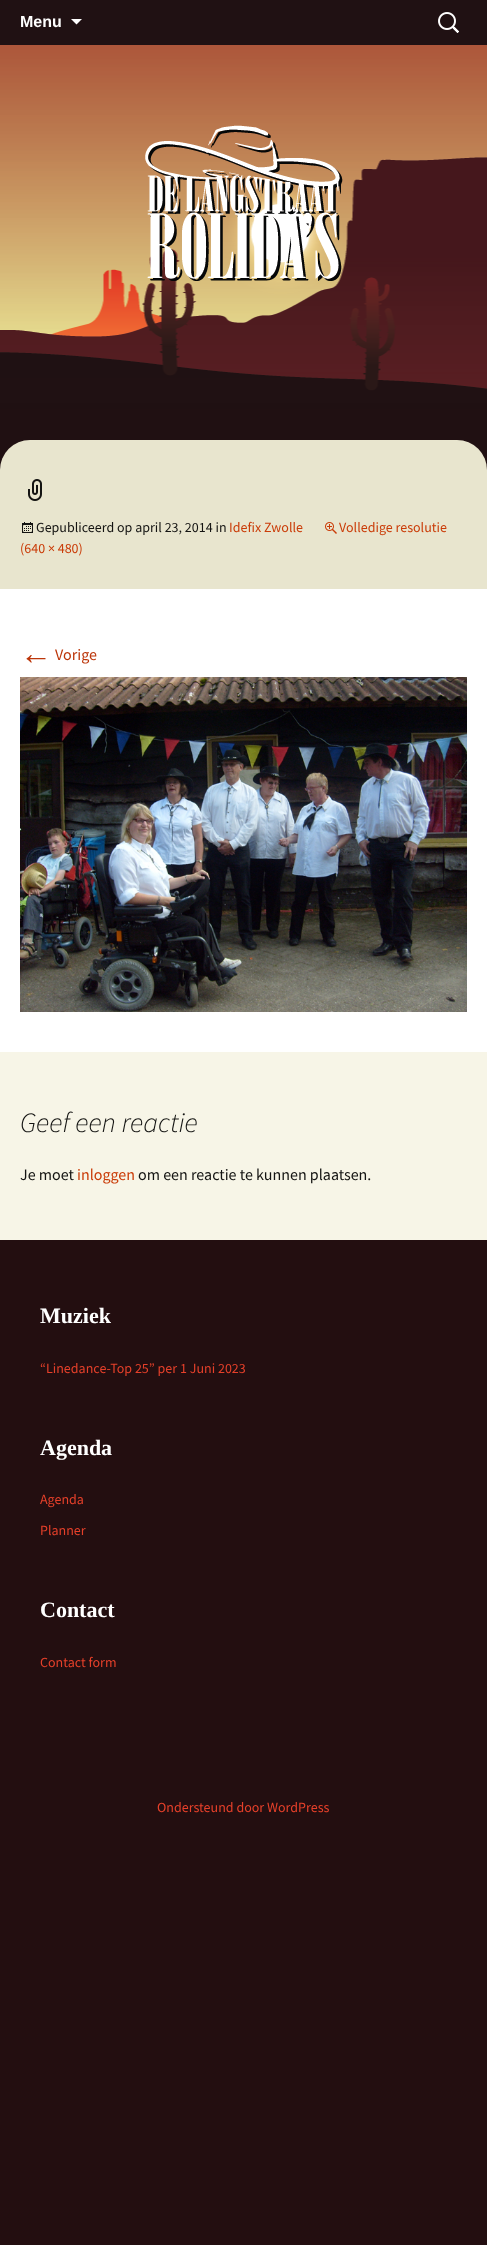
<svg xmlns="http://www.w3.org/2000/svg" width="487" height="2245">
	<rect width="100%" height="100%" fill="#230E10" />
	<image x="0" y="45" width="487" height="425" href="assets/img1.png" />
	<rect x="0" y="0" width="487" height="45" fill="#201113" />
	<text x="20" y="27" font-family="Liberation Sans" font-size="16" font-weight="700" fill="#FFFFFF">Menu</text>
	<path d="M71 19L76.5 24.5L82 19Z" fill="#FFFFFF" />
	<image x="438" y="12" width="21" height="21" href="assets/img2.png" />
	<image x="145" y="125" width="198" height="156" href="assets/img3.png" />
	<rect x="0" y="440" width="487" height="612" rx="30" fill="#E8E5CE" />
	<image x="28" y="479" width="14" height="22" href="assets/img4.png" />
	<image x="22" y="522" width="11" height="11" href="assets/img5.png" />
	<text x="36" y="532" font-family="Source Sans Pro" font-size="14" fill="#141412">Gepubliceerd op april 23, 2014 in</text>
	<text x="229" y="532" font-family="Source Sans Pro" font-size="14" fill="#CA3C08">Idefix Zwolle</text>
	<image x="325" y="522" width="12" height="12" href="assets/img6.png" />
	<g font-family="Source Sans Pro" font-size="14" fill="#CA3C08">
		<text x="339" y="532">Volledige resolutie</text>
		<text x="20" y="553">(640 × 480)</text>
	</g>
	<rect x="0" y="589" width="487" height="463" fill="#FFFFFF" />
	<text x="20" y="664" font-family="Liberation Sans" font-size="32" fill="#BC360A">←</text>
	<text x="55" y="660" font-family="Source Sans Pro" font-size="16" fill="#BC360A">Vorige</text>
	<image x="20" y="677" width="447" height="335" href="assets/img7.png" />
	<rect x="0" y="1052" width="487" height="188" fill="#F7F5E7" />
	<text x="20" y="1132" font-family="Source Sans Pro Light" font-size="28" font-weight="300" font-style="italic" fill="#141412">Geef een reactie</text>
	<text x="20" y="1180" font-family="Source Sans Pro" font-size="16" fill="#141412">Je moet</text>
	<text x="77" y="1180" font-family="Source Sans Pro" font-size="16" fill="#CA3C08">inloggen</text>
	<text x="138" y="1180" font-family="Source Sans Pro" font-size="16" fill="#141412">om een reactie te kunnen plaatsen.</text>
	<text x="40" y="1323" font-family="Liberation Serif" font-size="22" font-weight="700" fill="#FFFFFF">Muziek</text>
	<text x="40" y="1373" font-family="Source Sans Pro" font-size="14" fill="#E6402A">“Linedance-Top 25” per 1 Juni 2023</text>
	<text x="40" y="1455" font-family="Liberation Serif" font-size="22" font-weight="700" fill="#FFFFFF">Agenda</text>
	<g font-family="Source Sans Pro" font-size="14" fill="#E6402A">
		<text x="40" y="1504">Agenda</text>
		<text x="40" y="1535">Planner</text>
	</g>
	<text x="40" y="1617" font-family="Liberation Serif" font-size="22" font-weight="700" fill="#FFFFFF">Contact</text>
	<g font-family="Source Sans Pro" font-size="14" fill="#E6402A">
		<text x="40" y="1667">Contact form</text>
		<text x="157" y="1812">Ondersteund door WordPress</text>
	</g>
</svg>
